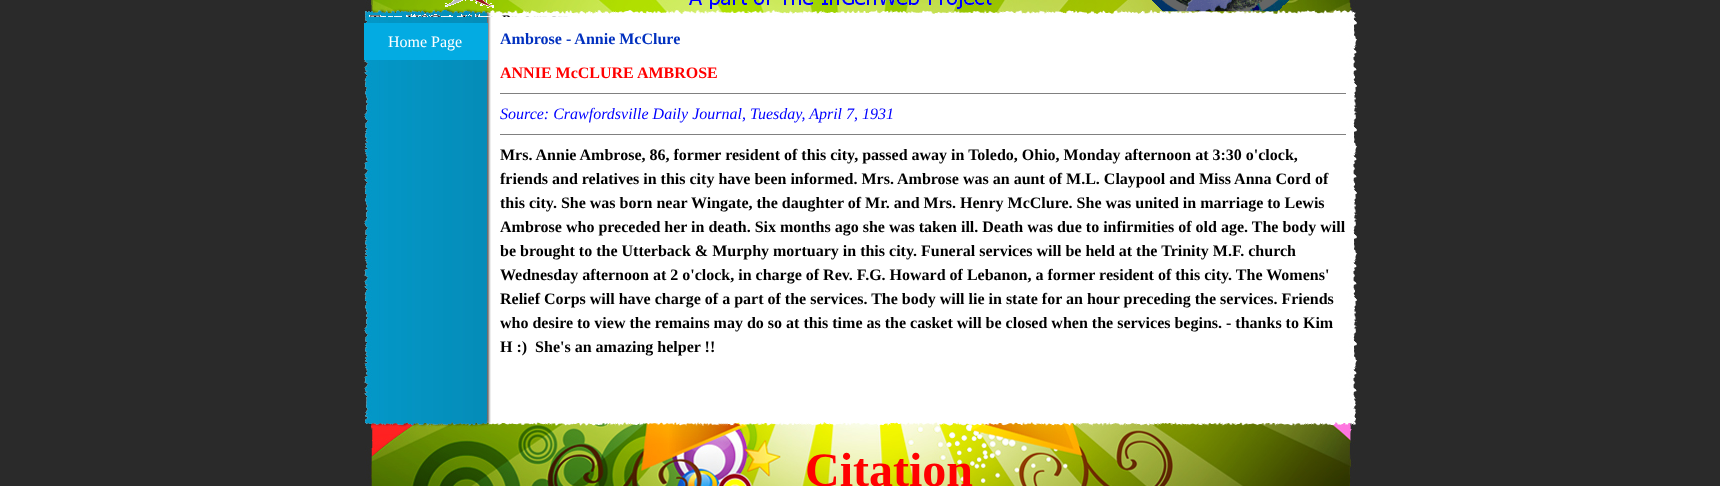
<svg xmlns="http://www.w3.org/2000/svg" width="1720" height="486">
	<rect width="100%" height="100%" fill="#2A2A2A" />
	<image x="365" y="0" width="991" height="18" href="assets/img1.png" />
	<image x="369" y="0" width="199" height="17" href="assets/img2.png" />
	<image x="689" y="0" width="303" height="9" href="assets/img3.png" />
	<image x="1152" y="0" width="137" height="12" href="assets/img4.png" />
	<image x="494" y="18" width="863" height="380" href="assets/img5.png" />
	<image x="364" y="18" width="130" height="380" href="assets/img6.png" />
	<rect x="364" y="23" width="124" height="37" fill="#03ABE2" />
	<text x="388" y="47" font-family="Liberation Serif" font-size="16" fill="#FFFFFF">Home Page</text>
	<text x="500" y="44" font-family="Liberation Serif" font-size="16" font-weight="700" fill="#0030BF">Ambrose - Annie McClure</text>
	<text x="500" y="78" font-family="Liberation Serif" font-size="16" font-weight="700" fill="#FF0000">ANNIE McCLURE AMBROSE</text>
	<rect x="500" y="93" width="846" height="1" fill="#808080" />
	<text x="500" y="119" font-family="Liberation Serif" font-size="16" font-style="italic" fill="#0000FF">Source: Crawfordsville Daily Journal, Tuesday, April 7, 1931</text>
	<rect x="500" y="134" width="846" height="1" fill="#808080" />
	<g font-family="Liberation Serif" font-size="16" font-weight="700" fill="#000000">
		<text x="500" y="160">Mrs. Annie Ambrose, 86, former resident of this city, passed away in Toledo, Ohio, Monday afternoon at 3:30 o'clock,</text>
		<text x="500" y="184">friends and relatives in this city have been informed. Mrs. Ambrose was an aunt of M.L. Claypool and Miss Anna Cord of</text>
		<text x="500" y="208">this city. She was born near Wingate, the daughter of Mr. and Mrs. Henry McClure. She was united in marriage to Lewis</text>
		<text x="500" y="232">Ambrose who preceded her in death. Six months ago she was taken ill. Death was due to infirmities of old age. The body will</text>
		<text x="500" y="256">be brought to the Utterback &amp; Murphy mortuary in this city. Funeral services will be held at the Trinity M.F. church</text>
		<text x="500" y="280">Wednesday afternoon at 2 o'clock, in charge of Rev. F.G. Howard of Lebanon, a former resident of this city. The Womens'</text>
		<text x="500" y="304">Relief Corps will have charge of a part of the services. The body will lie in state for an hour preceding the services. Friends</text>
		<text x="500" y="328">who desire to view the remains may do so at this time as the casket will be closed when the services begins. - thanks to Kim</text>
		<text x="500" y="352" xml:space="preserve">H :)  She's an amazing helper !!</text>
	</g>
	<image x="365" y="398" width="991" height="88" href="assets/img7.png" />
	<text x="805" y="486" font-family="Liberation Serif" font-size="48" font-weight="700" fill="#FF0000">Citation</text>
</svg>
